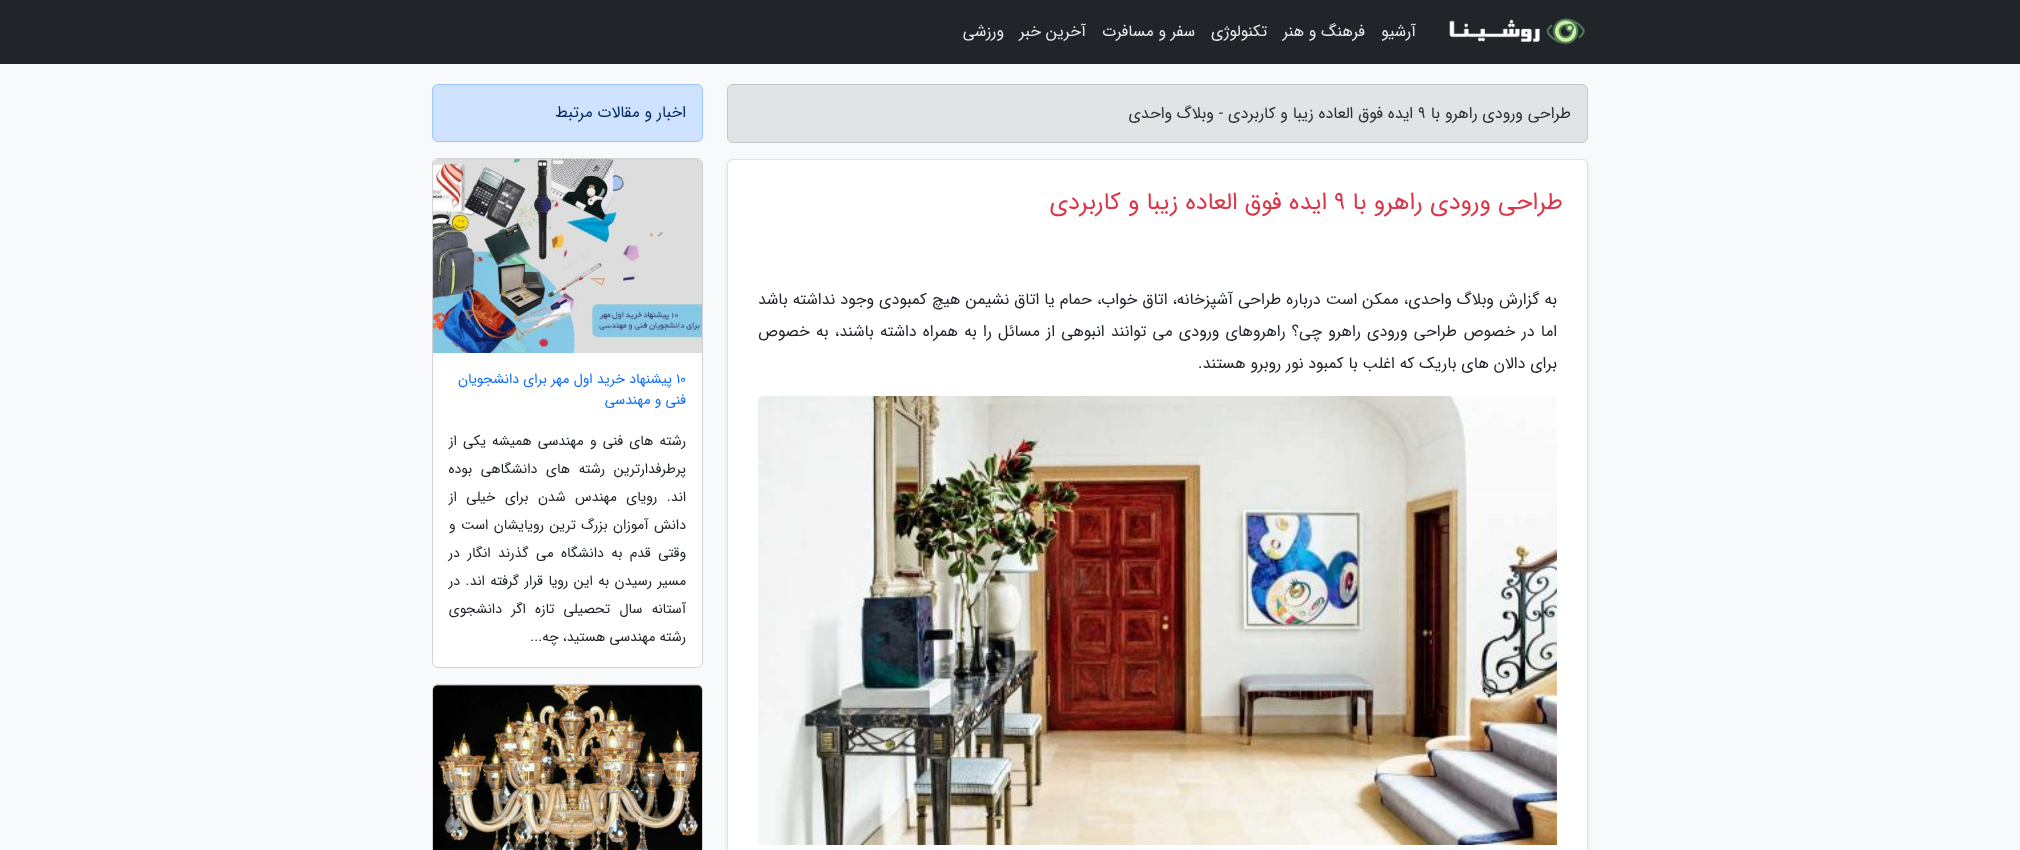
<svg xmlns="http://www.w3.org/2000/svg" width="2020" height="850">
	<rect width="100%" height="100%" fill="#F8F9FA" />
	<rect x="0" y="0" width="2020" height="64" fill="#212529" />
	<image x="1449" y="18" width="136" height="27" href="assets/img1.png" />
	<g font-family="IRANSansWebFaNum" font-size="16" direction="rtl" fill="#E9E9EA">
		<text x="1416" y="36">آرشیو</text>
		<text x="1365" y="36">فرهنگ و هنر</text>
		<text x="1267" y="36">تکنولوژی</text>
		<text x="1195" y="36">سفر و مسافرت</text>
		<text x="1086" y="36">آخرین خبر</text>
		<text x="1004" y="36">ورزشی</text>
	</g>
	<rect x="727.5" y="84.5" width="860" height="58" rx="5.5" fill="#E2E3E5" stroke="#C4C8CB" />
	<text x="1571" y="118" font-family="IRANSansWebFaNum" font-size="16" direction="rtl" fill="#2B2F32">طراحی ورودی راهرو با</text>
	<text x="1418" y="118" font-family="IRANSansWebFaNum" font-size="16" fill="#2B2F32">9</text>
	<text x="1413" y="118" font-family="IRANSansWebFaNum" font-size="16" direction="rtl" fill="#2B2F32">ایده فوق العاده زیبا و کاربردی - وبلاگ واحدی</text>
	<rect x="727" y="161" width="861" height="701" rx="6" fill="#000000" fill-opacity="0.07" filter="blur(2px)" />
	<rect x="727.5" y="159.5" width="860" height="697" rx="5.5" fill="#FFFFFF" stroke="#DEE2E6" />
	<text x="1563" y="209" font-family="IRANSansWebFaNum" font-size="24" direction="rtl" fill="#DC3545">طراحی ورودی راهرو با</text>
	<text x="1334" y="209" font-family="IRANSansWebFaNum" font-size="24" fill="#DC3545">9</text>
	<text x="1327" y="209" font-family="IRANSansWebFaNum" font-size="24" direction="rtl" fill="#DC3545">ایده فوق العاده زیبا و کاربردی</text>
	<g font-family="IRANSansWebFaNum" font-size="16" direction="rtl" fill="#212529">
		<text x="1557" y="304" word-spacing="0.25">به گزارش وبلاگ واحدی، ممکن است درباره طراحی آشپزخانه، اتاق خواب، حمام یا اتاق نشیمن هیچ کمبودی وجود نداشته باشد</text>
		<text x="1557" y="336" word-spacing="1.4">اما در خصوص طراحی ورودی راهرو چی؟ راهروهای ورودی می توانند انبوهی از مسائل را به همراه داشته باشند، به خصوص</text>
		<text x="1557" y="368">برای دالان های باریک که اغلب با کمبود نور روبرو هستند.</text>
	</g>
	<image x="758" y="396" width="799" height="449" href="assets/img2.png" />
	<rect x="432.5" y="84.5" width="270" height="57" rx="5.5" fill="#CFE2FF" stroke="#9EC5FE" />
	<text x="686" y="117" font-family="IRANSansWebFaNum" font-size="16" direction="rtl" fill="#052C65">اخبار و مقالات مرتبط</text>
	<rect x="432.5" y="158.5" width="270" height="509" rx="5.5" fill="#FFFFFF" stroke="#D2D2D2" />
	<image x="433" y="159" width="269" height="194" href="assets/img3.png" />
	<text x="676" y="383" font-family="IRANSansWebFaNum" font-size="14" fill="#0D6EFD">10</text>
	<g font-family="IRANSansWebFaNum" font-size="14" direction="rtl" fill="#0D6EFD">
		<text x="672" y="383">پیشنهاد خرید اول مهر برای دانشجویان</text>
		<text x="686" y="404">فنی و مهندسی</text>
	</g>
	<g font-family="IRANSansWebFaNum" font-size="14" direction="rtl" fill="#212529">
		<text x="686" y="445" word-spacing="2">رشته های فنی و مهندسی همیشه یکی از</text>
		<text x="686" y="473" word-spacing="4.5">پرطرفدارترین رشته های دانشگاهی بوده</text>
		<text x="686" y="501" word-spacing="5.25">اند. رویای مهندس شدن برای خیلی از</text>
		<text x="686" y="529" word-spacing="1.25">دانش آموزان بزرگ ترین رویایشان است و</text>
		<text x="686" y="557" word-spacing="3.25">وقتی قدم به دانشگاه می گذرند انگار در</text>
		<text x="686" y="585" word-spacing="1.25">مسیر رسیدن به این رویا قرار گرفته اند. در</text>
		<text x="686" y="613" word-spacing="5">آستانه سال تحصیلی تازه اگر دانشجوی</text>
		<text x="686" y="641">رشته مهندسی هستید، چه...</text>
	</g>
	<rect x="432.5" y="684.5" width="270" height="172" rx="5.5" fill="none" stroke="#D2D2D2" />
	<image x="433" y="685" width="269" height="165" href="assets/img4.png" />
</svg>
